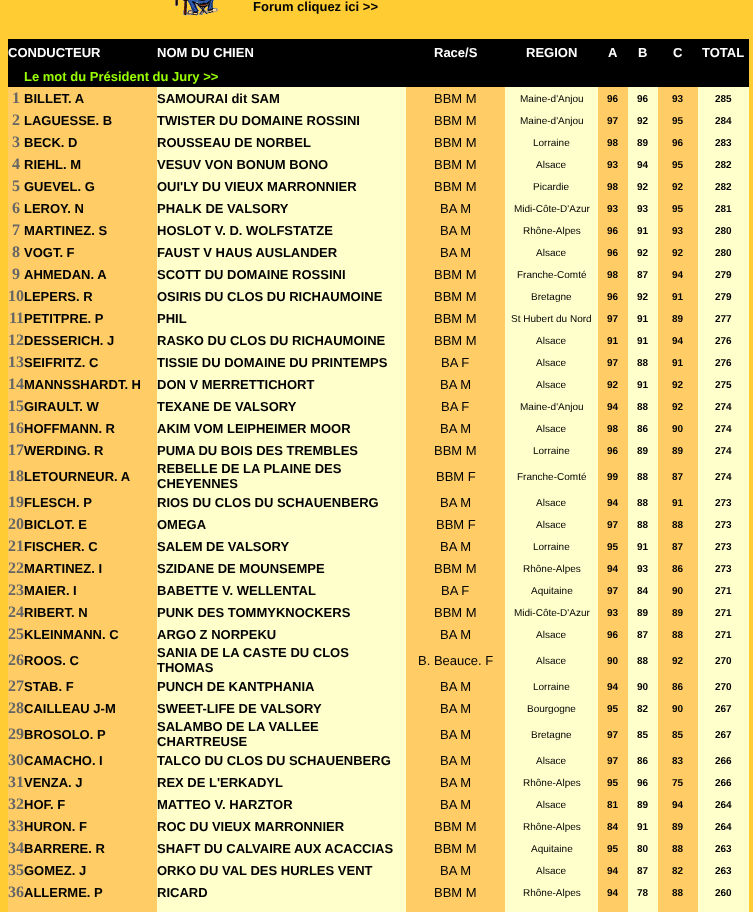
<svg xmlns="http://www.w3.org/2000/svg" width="753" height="912">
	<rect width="100%" height="100%" fill="#FFCC33" />
	<image x="175" y="0" width="43" height="16" href="assets/img1.png" />
	<text x="253" y="11" font-family="Liberation Sans" font-size="13" font-weight="700" fill="#000000">Forum cliquez ici &gt;&gt;</text>
	<rect x="8" y="39" width="741" height="26" fill="#000000" />
	<g font-family="Liberation Sans" font-size="13" font-weight="700" fill="#FFFFFF">
		<text x="8" y="57">CONDUCTEUR</text>
		<text x="157" y="57">NOM DU CHIEN</text>
		<text x="434" y="57">Race/S</text>
		<text x="526" y="57">REGION</text>
		<text x="608" y="57">A</text>
		<text x="638" y="57">B</text>
		<text x="673" y="57">C</text>
		<text x="702" y="57">TOTAL</text>
	</g>
	<rect x="8" y="65" width="741" height="22" fill="#000000" />
	<text x="24" y="81" font-family="Liberation Sans" font-size="13" font-weight="700" fill="#99FF00">Le mot du Président du Jury &gt;&gt;</text>
	<rect x="8" y="87" width="149" height="22" fill="#FFCC66" />
	<text x="12" y="103" font-family="Liberation Serif" font-size="16" font-weight="700" fill="#666666">1</text>
	<text x="24" y="103" font-family="Liberation Sans" font-size="13" font-weight="700" fill="#000000">BILLET. A</text>
	<rect x="157" y="87" width="249" height="825" fill="#FFFFCC" />
	<text x="157" y="103" font-family="Liberation Sans" font-size="13" font-weight="700" fill="#000000">SAMOURAI dit SAM</text>
	<rect x="406" y="87" width="99" height="825" fill="#FFCC66" />
	<text x="434" y="103" font-family="Liberation Sans" font-size="13" fill="#000000">BBM M</text>
	<rect x="505" y="87" width="93" height="825" fill="#FFFFCC" />
	<text x="520" y="102" font-family="Liberation Sans" font-size="10" fill="#000000">Maine-d'Anjou</text>
	<rect x="598" y="87" width="30" height="825" fill="#FFCC66" />
	<text x="607" y="102" font-family="Liberation Sans" font-size="10" font-weight="700" fill="#000000">96</text>
	<rect x="628" y="87" width="30" height="825" fill="#FFFFCC" />
	<text x="637" y="102" font-family="Liberation Sans" font-size="10" font-weight="700" fill="#000000">96</text>
	<rect x="658" y="87" width="40" height="825" fill="#FFCC66" />
	<text x="672" y="102" font-family="Liberation Sans" font-size="10" font-weight="700" fill="#000000">93</text>
	<rect x="698" y="87" width="51" height="825" fill="#FFFFCC" />
	<text x="715" y="102" font-family="Liberation Sans" font-size="10" font-weight="700" fill="#000000">285</text>
	<rect x="8" y="109" width="149" height="22" fill="#FFCC66" />
	<text x="12" y="125" font-family="Liberation Serif" font-size="16" font-weight="700" fill="#666666">2</text>
	<g font-family="Liberation Sans" font-size="13" font-weight="700" fill="#000000">
		<text x="24" y="125">LAGUESSE. B</text>
		<text x="157" y="125">TWISTER DU DOMAINE ROSSINI</text>
	</g>
	<text x="434" y="125" font-family="Liberation Sans" font-size="13" fill="#000000">BBM M</text>
	<text x="520" y="124" font-family="Liberation Sans" font-size="10" fill="#000000">Maine-d'Anjou</text>
	<g font-family="Liberation Sans" font-size="10" font-weight="700" fill="#000000">
		<text x="607" y="124">97</text>
		<text x="637" y="124">92</text>
		<text x="672" y="124">95</text>
		<text x="715" y="124">284</text>
	</g>
	<rect x="8" y="131" width="149" height="22" fill="#FFCC66" />
	<text x="12" y="147" font-family="Liberation Serif" font-size="16" font-weight="700" fill="#666666">3</text>
	<g font-family="Liberation Sans" font-size="13" font-weight="700" fill="#000000">
		<text x="24" y="147">BECK. D</text>
		<text x="157" y="147">ROUSSEAU DE NORBEL</text>
	</g>
	<text x="434" y="147" font-family="Liberation Sans" font-size="13" fill="#000000">BBM M</text>
	<text x="533" y="146" font-family="Liberation Sans" font-size="10" fill="#000000">Lorraine</text>
	<g font-family="Liberation Sans" font-size="10" font-weight="700" fill="#000000">
		<text x="607" y="146">98</text>
		<text x="637" y="146">89</text>
		<text x="672" y="146">96</text>
		<text x="715" y="146">283</text>
	</g>
	<rect x="8" y="153" width="149" height="22" fill="#FFCC66" />
	<text x="12" y="169" font-family="Liberation Serif" font-size="16" font-weight="700" fill="#666666">4</text>
	<g font-family="Liberation Sans" font-size="13" font-weight="700" fill="#000000">
		<text x="24" y="169">RIEHL. M</text>
		<text x="157" y="169">VESUV VON BONUM BONO</text>
	</g>
	<text x="434" y="169" font-family="Liberation Sans" font-size="13" fill="#000000">BBM M</text>
	<text x="536" y="168" font-family="Liberation Sans" font-size="10" fill="#000000">Alsace</text>
	<g font-family="Liberation Sans" font-size="10" font-weight="700" fill="#000000">
		<text x="607" y="168">93</text>
		<text x="637" y="168">94</text>
		<text x="672" y="168">95</text>
		<text x="715" y="168">282</text>
	</g>
	<rect x="8" y="175" width="149" height="22" fill="#FFCC66" />
	<text x="12" y="191" font-family="Liberation Serif" font-size="16" font-weight="700" fill="#666666">5</text>
	<g font-family="Liberation Sans" font-size="13" font-weight="700" fill="#000000">
		<text x="24" y="191">GUEVEL. G</text>
		<text x="157" y="191">OUI'LY DU VIEUX MARRONNIER</text>
	</g>
	<text x="434" y="191" font-family="Liberation Sans" font-size="13" fill="#000000">BBM M</text>
	<text x="533" y="190" font-family="Liberation Sans" font-size="10" fill="#000000">Picardie</text>
	<g font-family="Liberation Sans" font-size="10" font-weight="700" fill="#000000">
		<text x="607" y="190">98</text>
		<text x="637" y="190">92</text>
		<text x="672" y="190">92</text>
		<text x="715" y="190">282</text>
	</g>
	<rect x="8" y="197" width="149" height="22" fill="#FFCC66" />
	<text x="12" y="213" font-family="Liberation Serif" font-size="16" font-weight="700" fill="#666666">6</text>
	<g font-family="Liberation Sans" font-size="13" font-weight="700" fill="#000000">
		<text x="24" y="213">LEROY. N</text>
		<text x="157" y="213">PHALK DE VALSORY</text>
	</g>
	<text x="440" y="213" font-family="Liberation Sans" font-size="13" fill="#000000">BA M</text>
	<text x="514" y="212" font-family="Liberation Sans" font-size="10" fill="#000000">Midi-Côte-D'Azur</text>
	<g font-family="Liberation Sans" font-size="10" font-weight="700" fill="#000000">
		<text x="607" y="212">93</text>
		<text x="637" y="212">93</text>
		<text x="672" y="212">95</text>
		<text x="715" y="212">281</text>
	</g>
	<rect x="8" y="219" width="149" height="22" fill="#FFCC66" />
	<text x="12" y="235" font-family="Liberation Serif" font-size="16" font-weight="700" fill="#666666">7</text>
	<g font-family="Liberation Sans" font-size="13" font-weight="700" fill="#000000">
		<text x="24" y="235">MARTINEZ. S</text>
		<text x="157" y="235">HOSLOT V. D. WOLFSTATZE</text>
	</g>
	<text x="440" y="235" font-family="Liberation Sans" font-size="13" fill="#000000">BA M</text>
	<text x="523" y="234" font-family="Liberation Sans" font-size="10" fill="#000000">Rhône-Alpes</text>
	<g font-family="Liberation Sans" font-size="10" font-weight="700" fill="#000000">
		<text x="607" y="234">96</text>
		<text x="637" y="234">91</text>
		<text x="672" y="234">93</text>
		<text x="715" y="234">280</text>
	</g>
	<rect x="8" y="241" width="149" height="22" fill="#FFCC66" />
	<text x="12" y="257" font-family="Liberation Serif" font-size="16" font-weight="700" fill="#666666">8</text>
	<g font-family="Liberation Sans" font-size="13" font-weight="700" fill="#000000">
		<text x="24" y="257">VOGT. F</text>
		<text x="157" y="257">FAUST V HAUS AUSLANDER</text>
	</g>
	<text x="440" y="257" font-family="Liberation Sans" font-size="13" fill="#000000">BA M</text>
	<text x="536" y="256" font-family="Liberation Sans" font-size="10" fill="#000000">Alsace</text>
	<g font-family="Liberation Sans" font-size="10" font-weight="700" fill="#000000">
		<text x="607" y="256">96</text>
		<text x="637" y="256">92</text>
		<text x="672" y="256">92</text>
		<text x="715" y="256">280</text>
	</g>
	<rect x="8" y="263" width="149" height="22" fill="#FFCC66" />
	<text x="12" y="279" font-family="Liberation Serif" font-size="16" font-weight="700" fill="#666666">9</text>
	<g font-family="Liberation Sans" font-size="13" font-weight="700" fill="#000000">
		<text x="24" y="279">AHMEDAN. A</text>
		<text x="157" y="279">SCOTT DU DOMAINE ROSSINI</text>
	</g>
	<text x="434" y="279" font-family="Liberation Sans" font-size="13" fill="#000000">BBM M</text>
	<text x="517" y="278" font-family="Liberation Sans" font-size="10" fill="#000000">Franche-Comté</text>
	<g font-family="Liberation Sans" font-size="10" font-weight="700" fill="#000000">
		<text x="607" y="278">98</text>
		<text x="637" y="278">87</text>
		<text x="672" y="278">94</text>
		<text x="715" y="278">279</text>
	</g>
	<rect x="8" y="285" width="149" height="22" fill="#FFCC66" />
	<text x="8" y="301" font-family="Liberation Serif" font-size="16" font-weight="700" fill="#666666">10</text>
	<g font-family="Liberation Sans" font-size="13" font-weight="700" fill="#000000">
		<text x="24" y="301">LEPERS. R</text>
		<text x="157" y="301">OSIRIS DU CLOS DU RICHAUMOINE</text>
	</g>
	<text x="434" y="301" font-family="Liberation Sans" font-size="13" fill="#000000">BBM M</text>
	<text x="531" y="300" font-family="Liberation Sans" font-size="10" fill="#000000">Bretagne</text>
	<g font-family="Liberation Sans" font-size="10" font-weight="700" fill="#000000">
		<text x="607" y="300">96</text>
		<text x="637" y="300">92</text>
		<text x="672" y="300">91</text>
		<text x="715" y="300">279</text>
	</g>
	<rect x="8" y="307" width="149" height="22" fill="#FFCC66" />
	<text x="9" y="323" font-family="Liberation Serif" font-size="16" font-weight="700" fill="#666666">11</text>
	<g font-family="Liberation Sans" font-size="13" font-weight="700" fill="#000000">
		<text x="24" y="323">PETITPRE. P</text>
		<text x="157" y="323">PHIL</text>
	</g>
	<text x="434" y="323" font-family="Liberation Sans" font-size="13" fill="#000000">BBM M</text>
	<text x="511" y="322" font-family="Liberation Sans" font-size="10" fill="#000000">St Hubert du Nord</text>
	<g font-family="Liberation Sans" font-size="10" font-weight="700" fill="#000000">
		<text x="607" y="322">97</text>
		<text x="637" y="322">91</text>
		<text x="672" y="322">89</text>
		<text x="715" y="322">277</text>
	</g>
	<rect x="8" y="329" width="149" height="22" fill="#FFCC66" />
	<text x="8" y="345" font-family="Liberation Serif" font-size="16" font-weight="700" fill="#666666">12</text>
	<g font-family="Liberation Sans" font-size="13" font-weight="700" fill="#000000">
		<text x="24" y="345">DESSERICH. J</text>
		<text x="157" y="345">RASKO DU CLOS DU RICHAUMOINE</text>
	</g>
	<text x="434" y="345" font-family="Liberation Sans" font-size="13" fill="#000000">BBM M</text>
	<text x="536" y="344" font-family="Liberation Sans" font-size="10" fill="#000000">Alsace</text>
	<g font-family="Liberation Sans" font-size="10" font-weight="700" fill="#000000">
		<text x="607" y="344">91</text>
		<text x="637" y="344">91</text>
		<text x="672" y="344">94</text>
		<text x="715" y="344">276</text>
	</g>
	<rect x="8" y="351" width="149" height="22" fill="#FFCC66" />
	<text x="8" y="367" font-family="Liberation Serif" font-size="16" font-weight="700" fill="#666666">13</text>
	<g font-family="Liberation Sans" font-size="13" font-weight="700" fill="#000000">
		<text x="24" y="367">SEIFRITZ. C</text>
		<text x="157" y="367">TISSIE DU DOMAINE DU PRINTEMPS</text>
	</g>
	<text x="441" y="367" font-family="Liberation Sans" font-size="13" fill="#000000">BA F</text>
	<text x="536" y="366" font-family="Liberation Sans" font-size="10" fill="#000000">Alsace</text>
	<g font-family="Liberation Sans" font-size="10" font-weight="700" fill="#000000">
		<text x="607" y="366">97</text>
		<text x="637" y="366">88</text>
		<text x="672" y="366">91</text>
		<text x="715" y="366">276</text>
	</g>
	<rect x="8" y="373" width="149" height="22" fill="#FFCC66" />
	<text x="8" y="389" font-family="Liberation Serif" font-size="16" font-weight="700" fill="#666666">14</text>
	<g font-family="Liberation Sans" font-size="13" font-weight="700" fill="#000000">
		<text x="24" y="389">MANNSSHARDT. H</text>
		<text x="157" y="389">DON V MERRETTICHORT</text>
	</g>
	<text x="440" y="389" font-family="Liberation Sans" font-size="13" fill="#000000">BA M</text>
	<text x="536" y="388" font-family="Liberation Sans" font-size="10" fill="#000000">Alsace</text>
	<g font-family="Liberation Sans" font-size="10" font-weight="700" fill="#000000">
		<text x="607" y="388">92</text>
		<text x="637" y="388">91</text>
		<text x="672" y="388">92</text>
		<text x="715" y="388">275</text>
	</g>
	<rect x="8" y="395" width="149" height="22" fill="#FFCC66" />
	<text x="8" y="411" font-family="Liberation Serif" font-size="16" font-weight="700" fill="#666666">15</text>
	<g font-family="Liberation Sans" font-size="13" font-weight="700" fill="#000000">
		<text x="24" y="411">GIRAULT. W</text>
		<text x="157" y="411">TEXANE DE VALSORY</text>
	</g>
	<text x="441" y="411" font-family="Liberation Sans" font-size="13" fill="#000000">BA F</text>
	<text x="520" y="410" font-family="Liberation Sans" font-size="10" fill="#000000">Maine-d'Anjou</text>
	<g font-family="Liberation Sans" font-size="10" font-weight="700" fill="#000000">
		<text x="607" y="410">94</text>
		<text x="637" y="410">88</text>
		<text x="672" y="410">92</text>
		<text x="715" y="410">274</text>
	</g>
	<rect x="8" y="417" width="149" height="22" fill="#FFCC66" />
	<text x="8" y="433" font-family="Liberation Serif" font-size="16" font-weight="700" fill="#666666">16</text>
	<g font-family="Liberation Sans" font-size="13" font-weight="700" fill="#000000">
		<text x="24" y="433">HOFFMANN. R</text>
		<text x="157" y="433">AKIM VOM LEIPHEIMER MOOR</text>
	</g>
	<text x="440" y="433" font-family="Liberation Sans" font-size="13" fill="#000000">BA M</text>
	<text x="536" y="432" font-family="Liberation Sans" font-size="10" fill="#000000">Alsace</text>
	<g font-family="Liberation Sans" font-size="10" font-weight="700" fill="#000000">
		<text x="607" y="432">98</text>
		<text x="637" y="432">86</text>
		<text x="672" y="432">90</text>
		<text x="715" y="432">274</text>
	</g>
	<rect x="8" y="439" width="149" height="22" fill="#FFCC66" />
	<text x="8" y="455" font-family="Liberation Serif" font-size="16" font-weight="700" fill="#666666">17</text>
	<g font-family="Liberation Sans" font-size="13" font-weight="700" fill="#000000">
		<text x="24" y="455">WERDING. R</text>
		<text x="157" y="455">PUMA DU BOIS DES TREMBLES</text>
	</g>
	<text x="434" y="455" font-family="Liberation Sans" font-size="13" fill="#000000">BBM M</text>
	<text x="533" y="454" font-family="Liberation Sans" font-size="10" fill="#000000">Lorraine</text>
	<g font-family="Liberation Sans" font-size="10" font-weight="700" fill="#000000">
		<text x="607" y="454">96</text>
		<text x="637" y="454">89</text>
		<text x="672" y="454">89</text>
		<text x="715" y="454">274</text>
	</g>
	<rect x="8" y="461" width="149" height="30" fill="#FFCC66" />
	<text x="8" y="481" font-family="Liberation Serif" font-size="16" font-weight="700" fill="#666666">18</text>
	<g font-family="Liberation Sans" font-size="13" font-weight="700" fill="#000000">
		<text x="24" y="481">LETOURNEUR. A</text>
		<text x="157" y="473">REBELLE DE LA PLAINE DES</text>
		<text x="157" y="488">CHEYENNES</text>
	</g>
	<text x="436" y="481" font-family="Liberation Sans" font-size="13" fill="#000000">BBM F</text>
	<text x="517" y="480" font-family="Liberation Sans" font-size="10" fill="#000000">Franche-Comté</text>
	<g font-family="Liberation Sans" font-size="10" font-weight="700" fill="#000000">
		<text x="607" y="480">99</text>
		<text x="637" y="480">88</text>
		<text x="672" y="480">87</text>
		<text x="715" y="480">274</text>
	</g>
	<rect x="8" y="491" width="149" height="22" fill="#FFCC66" />
	<text x="8" y="507" font-family="Liberation Serif" font-size="16" font-weight="700" fill="#666666">19</text>
	<g font-family="Liberation Sans" font-size="13" font-weight="700" fill="#000000">
		<text x="24" y="507">FLESCH. P</text>
		<text x="157" y="507">RIOS DU CLOS DU SCHAUENBERG</text>
	</g>
	<text x="440" y="507" font-family="Liberation Sans" font-size="13" fill="#000000">BA M</text>
	<text x="536" y="506" font-family="Liberation Sans" font-size="10" fill="#000000">Alsace</text>
	<g font-family="Liberation Sans" font-size="10" font-weight="700" fill="#000000">
		<text x="607" y="506">94</text>
		<text x="637" y="506">88</text>
		<text x="672" y="506">91</text>
		<text x="715" y="506">273</text>
	</g>
	<rect x="8" y="513" width="149" height="22" fill="#FFCC66" />
	<text x="8" y="529" font-family="Liberation Serif" font-size="16" font-weight="700" fill="#666666">20</text>
	<g font-family="Liberation Sans" font-size="13" font-weight="700" fill="#000000">
		<text x="24" y="529">BICLOT. E</text>
		<text x="157" y="529">OMEGA</text>
	</g>
	<text x="436" y="529" font-family="Liberation Sans" font-size="13" fill="#000000">BBM F</text>
	<text x="536" y="528" font-family="Liberation Sans" font-size="10" fill="#000000">Alsace</text>
	<g font-family="Liberation Sans" font-size="10" font-weight="700" fill="#000000">
		<text x="607" y="528">97</text>
		<text x="637" y="528">88</text>
		<text x="672" y="528">88</text>
		<text x="715" y="528">273</text>
	</g>
	<rect x="8" y="535" width="149" height="22" fill="#FFCC66" />
	<text x="8" y="551" font-family="Liberation Serif" font-size="16" font-weight="700" fill="#666666">21</text>
	<g font-family="Liberation Sans" font-size="13" font-weight="700" fill="#000000">
		<text x="24" y="551">FISCHER. C</text>
		<text x="157" y="551">SALEM DE VALSORY</text>
	</g>
	<text x="440" y="551" font-family="Liberation Sans" font-size="13" fill="#000000">BA M</text>
	<text x="533" y="550" font-family="Liberation Sans" font-size="10" fill="#000000">Lorraine</text>
	<g font-family="Liberation Sans" font-size="10" font-weight="700" fill="#000000">
		<text x="607" y="550">95</text>
		<text x="637" y="550">91</text>
		<text x="672" y="550">87</text>
		<text x="715" y="550">273</text>
	</g>
	<rect x="8" y="557" width="149" height="22" fill="#FFCC66" />
	<text x="8" y="573" font-family="Liberation Serif" font-size="16" font-weight="700" fill="#666666">22</text>
	<g font-family="Liberation Sans" font-size="13" font-weight="700" fill="#000000">
		<text x="24" y="573">MARTINEZ. I</text>
		<text x="157" y="573">SZIDANE DE MOUNSEMPE</text>
	</g>
	<text x="434" y="573" font-family="Liberation Sans" font-size="13" fill="#000000">BBM M</text>
	<text x="523" y="572" font-family="Liberation Sans" font-size="10" fill="#000000">Rhône-Alpes</text>
	<g font-family="Liberation Sans" font-size="10" font-weight="700" fill="#000000">
		<text x="607" y="572">94</text>
		<text x="637" y="572">93</text>
		<text x="672" y="572">86</text>
		<text x="715" y="572">273</text>
	</g>
	<rect x="8" y="579" width="149" height="22" fill="#FFCC66" />
	<text x="8" y="595" font-family="Liberation Serif" font-size="16" font-weight="700" fill="#666666">23</text>
	<g font-family="Liberation Sans" font-size="13" font-weight="700" fill="#000000">
		<text x="24" y="595">MAIER. I</text>
		<text x="157" y="595">BABETTE V. WELLENTAL</text>
	</g>
	<text x="441" y="595" font-family="Liberation Sans" font-size="13" fill="#000000">BA F</text>
	<text x="531" y="594" font-family="Liberation Sans" font-size="10" fill="#000000">Aquitaine</text>
	<g font-family="Liberation Sans" font-size="10" font-weight="700" fill="#000000">
		<text x="607" y="594">97</text>
		<text x="637" y="594">84</text>
		<text x="672" y="594">90</text>
		<text x="715" y="594">271</text>
	</g>
	<rect x="8" y="601" width="149" height="22" fill="#FFCC66" />
	<text x="8" y="617" font-family="Liberation Serif" font-size="16" font-weight="700" fill="#666666">24</text>
	<g font-family="Liberation Sans" font-size="13" font-weight="700" fill="#000000">
		<text x="24" y="617">RIBERT. N</text>
		<text x="157" y="617">PUNK DES TOMMYKNOCKERS</text>
	</g>
	<text x="434" y="617" font-family="Liberation Sans" font-size="13" fill="#000000">BBM M</text>
	<text x="514" y="616" font-family="Liberation Sans" font-size="10" fill="#000000">Midi-Côte-D'Azur</text>
	<g font-family="Liberation Sans" font-size="10" font-weight="700" fill="#000000">
		<text x="607" y="616">93</text>
		<text x="637" y="616">89</text>
		<text x="672" y="616">89</text>
		<text x="715" y="616">271</text>
	</g>
	<rect x="8" y="623" width="149" height="22" fill="#FFCC66" />
	<text x="8" y="639" font-family="Liberation Serif" font-size="16" font-weight="700" fill="#666666">25</text>
	<g font-family="Liberation Sans" font-size="13" font-weight="700" fill="#000000">
		<text x="24" y="639">KLEINMANN. C</text>
		<text x="157" y="639">ARGO Z NORPEKU</text>
	</g>
	<text x="440" y="639" font-family="Liberation Sans" font-size="13" fill="#000000">BA M</text>
	<text x="536" y="638" font-family="Liberation Sans" font-size="10" fill="#000000">Alsace</text>
	<g font-family="Liberation Sans" font-size="10" font-weight="700" fill="#000000">
		<text x="607" y="638">96</text>
		<text x="637" y="638">87</text>
		<text x="672" y="638">88</text>
		<text x="715" y="638">271</text>
	</g>
	<rect x="8" y="645" width="149" height="30" fill="#FFCC66" />
	<text x="8" y="665" font-family="Liberation Serif" font-size="16" font-weight="700" fill="#666666">26</text>
	<g font-family="Liberation Sans" font-size="13" font-weight="700" fill="#000000">
		<text x="24" y="665">ROOS. C</text>
		<text x="157" y="657">SANIA DE LA CASTE DU CLOS</text>
		<text x="157" y="672">THOMAS</text>
	</g>
	<text x="418" y="665" font-family="Liberation Sans" font-size="13" fill="#000000">B. Beauce. F</text>
	<text x="536" y="664" font-family="Liberation Sans" font-size="10" fill="#000000">Alsace</text>
	<g font-family="Liberation Sans" font-size="10" font-weight="700" fill="#000000">
		<text x="607" y="664">90</text>
		<text x="637" y="664">88</text>
		<text x="672" y="664">92</text>
		<text x="715" y="664">270</text>
	</g>
	<rect x="8" y="675" width="149" height="22" fill="#FFCC66" />
	<text x="8" y="691" font-family="Liberation Serif" font-size="16" font-weight="700" fill="#666666">27</text>
	<g font-family="Liberation Sans" font-size="13" font-weight="700" fill="#000000">
		<text x="24" y="691">STAB. F</text>
		<text x="157" y="691">PUNCH DE KANTPHANIA</text>
	</g>
	<text x="440" y="691" font-family="Liberation Sans" font-size="13" fill="#000000">BA M</text>
	<text x="533" y="690" font-family="Liberation Sans" font-size="10" fill="#000000">Lorraine</text>
	<g font-family="Liberation Sans" font-size="10" font-weight="700" fill="#000000">
		<text x="607" y="690">94</text>
		<text x="637" y="690">90</text>
		<text x="672" y="690">86</text>
		<text x="715" y="690">270</text>
	</g>
	<rect x="8" y="697" width="149" height="22" fill="#FFCC66" />
	<text x="8" y="713" font-family="Liberation Serif" font-size="16" font-weight="700" fill="#666666">28</text>
	<g font-family="Liberation Sans" font-size="13" font-weight="700" fill="#000000">
		<text x="24" y="713">CAILLEAU J-M</text>
		<text x="157" y="713">SWEET-LIFE DE VALSORY</text>
	</g>
	<text x="440" y="713" font-family="Liberation Sans" font-size="13" fill="#000000">BA M</text>
	<text x="527" y="712" font-family="Liberation Sans" font-size="10" fill="#000000">Bourgogne</text>
	<g font-family="Liberation Sans" font-size="10" font-weight="700" fill="#000000">
		<text x="607" y="712">95</text>
		<text x="637" y="712">82</text>
		<text x="672" y="712">90</text>
		<text x="715" y="712">267</text>
	</g>
	<rect x="8" y="719" width="149" height="30" fill="#FFCC66" />
	<text x="8" y="739" font-family="Liberation Serif" font-size="16" font-weight="700" fill="#666666">29</text>
	<g font-family="Liberation Sans" font-size="13" font-weight="700" fill="#000000">
		<text x="24" y="739">BROSOLO. P</text>
		<text x="157" y="731">SALAMBO DE LA VALLEE</text>
		<text x="157" y="746">CHARTREUSE</text>
	</g>
	<text x="440" y="739" font-family="Liberation Sans" font-size="13" fill="#000000">BA M</text>
	<text x="531" y="738" font-family="Liberation Sans" font-size="10" fill="#000000">Bretagne</text>
	<g font-family="Liberation Sans" font-size="10" font-weight="700" fill="#000000">
		<text x="607" y="738">97</text>
		<text x="637" y="738">85</text>
		<text x="672" y="738">85</text>
		<text x="715" y="738">267</text>
	</g>
	<rect x="8" y="749" width="149" height="22" fill="#FFCC66" />
	<text x="8" y="765" font-family="Liberation Serif" font-size="16" font-weight="700" fill="#666666">30</text>
	<g font-family="Liberation Sans" font-size="13" font-weight="700" fill="#000000">
		<text x="24" y="765">CAMACHO. I</text>
		<text x="157" y="765">TALCO DU CLOS DU SCHAUENBERG</text>
	</g>
	<text x="440" y="765" font-family="Liberation Sans" font-size="13" fill="#000000">BA M</text>
	<text x="536" y="764" font-family="Liberation Sans" font-size="10" fill="#000000">Alsace</text>
	<g font-family="Liberation Sans" font-size="10" font-weight="700" fill="#000000">
		<text x="607" y="764">97</text>
		<text x="637" y="764">86</text>
		<text x="672" y="764">83</text>
		<text x="715" y="764">266</text>
	</g>
	<rect x="8" y="771" width="149" height="22" fill="#FFCC66" />
	<text x="8" y="787" font-family="Liberation Serif" font-size="16" font-weight="700" fill="#666666">31</text>
	<g font-family="Liberation Sans" font-size="13" font-weight="700" fill="#000000">
		<text x="24" y="787">VENZA. J</text>
		<text x="157" y="787">REX DE L'ERKADYL</text>
	</g>
	<text x="440" y="787" font-family="Liberation Sans" font-size="13" fill="#000000">BA M</text>
	<text x="523" y="786" font-family="Liberation Sans" font-size="10" fill="#000000">Rhône-Alpes</text>
	<g font-family="Liberation Sans" font-size="10" font-weight="700" fill="#000000">
		<text x="607" y="786">95</text>
		<text x="637" y="786">96</text>
		<text x="672" y="786">75</text>
		<text x="715" y="786">266</text>
	</g>
	<rect x="8" y="793" width="149" height="22" fill="#FFCC66" />
	<text x="8" y="809" font-family="Liberation Serif" font-size="16" font-weight="700" fill="#666666">32</text>
	<g font-family="Liberation Sans" font-size="13" font-weight="700" fill="#000000">
		<text x="24" y="809">HOF. F</text>
		<text x="157" y="809">MATTEO V. HARZTOR</text>
	</g>
	<text x="440" y="809" font-family="Liberation Sans" font-size="13" fill="#000000">BA M</text>
	<text x="536" y="808" font-family="Liberation Sans" font-size="10" fill="#000000">Alsace</text>
	<g font-family="Liberation Sans" font-size="10" font-weight="700" fill="#000000">
		<text x="607" y="808">81</text>
		<text x="637" y="808">89</text>
		<text x="672" y="808">94</text>
		<text x="715" y="808">264</text>
	</g>
	<rect x="8" y="815" width="149" height="22" fill="#FFCC66" />
	<text x="8" y="831" font-family="Liberation Serif" font-size="16" font-weight="700" fill="#666666">33</text>
	<g font-family="Liberation Sans" font-size="13" font-weight="700" fill="#000000">
		<text x="24" y="831">HURON. F</text>
		<text x="157" y="831">ROC DU VIEUX MARRONNIER</text>
	</g>
	<text x="434" y="831" font-family="Liberation Sans" font-size="13" fill="#000000">BBM M</text>
	<text x="523" y="830" font-family="Liberation Sans" font-size="10" fill="#000000">Rhône-Alpes</text>
	<g font-family="Liberation Sans" font-size="10" font-weight="700" fill="#000000">
		<text x="607" y="830">84</text>
		<text x="637" y="830">91</text>
		<text x="672" y="830">89</text>
		<text x="715" y="830">264</text>
	</g>
	<rect x="8" y="837" width="149" height="22" fill="#FFCC66" />
	<text x="8" y="853" font-family="Liberation Serif" font-size="16" font-weight="700" fill="#666666">34</text>
	<g font-family="Liberation Sans" font-size="13" font-weight="700" fill="#000000">
		<text x="24" y="853">BARRERE. R</text>
		<text x="157" y="853">SHAFT DU CALVAIRE AUX ACACCIAS</text>
	</g>
	<text x="434" y="853" font-family="Liberation Sans" font-size="13" fill="#000000">BBM M</text>
	<text x="531" y="852" font-family="Liberation Sans" font-size="10" fill="#000000">Aquitaine</text>
	<g font-family="Liberation Sans" font-size="10" font-weight="700" fill="#000000">
		<text x="607" y="852">95</text>
		<text x="637" y="852">80</text>
		<text x="672" y="852">88</text>
		<text x="715" y="852">263</text>
	</g>
	<rect x="8" y="859" width="149" height="22" fill="#FFCC66" />
	<text x="8" y="875" font-family="Liberation Serif" font-size="16" font-weight="700" fill="#666666">35</text>
	<g font-family="Liberation Sans" font-size="13" font-weight="700" fill="#000000">
		<text x="24" y="875">GOMEZ. J</text>
		<text x="157" y="875">ORKO DU VAL DES HURLES VENT</text>
	</g>
	<text x="440" y="875" font-family="Liberation Sans" font-size="13" fill="#000000">BA M</text>
	<text x="536" y="874" font-family="Liberation Sans" font-size="10" fill="#000000">Alsace</text>
	<g font-family="Liberation Sans" font-size="10" font-weight="700" fill="#000000">
		<text x="607" y="874">94</text>
		<text x="637" y="874">87</text>
		<text x="672" y="874">82</text>
		<text x="715" y="874">263</text>
	</g>
	<rect x="8" y="881" width="149" height="22" fill="#FFCC66" />
	<text x="8" y="897" font-family="Liberation Serif" font-size="16" font-weight="700" fill="#666666">36</text>
	<g font-family="Liberation Sans" font-size="13" font-weight="700" fill="#000000">
		<text x="24" y="897">ALLERME. P</text>
		<text x="157" y="897">RICARD</text>
	</g>
	<text x="434" y="897" font-family="Liberation Sans" font-size="13" fill="#000000">BBM M</text>
	<text x="523" y="896" font-family="Liberation Sans" font-size="10" fill="#000000">Rhône-Alpes</text>
	<g font-family="Liberation Sans" font-size="10" font-weight="700" fill="#000000">
		<text x="607" y="896">94</text>
		<text x="637" y="896">78</text>
		<text x="672" y="896">88</text>
		<text x="715" y="896">260</text>
	</g>
	<rect x="8" y="903" width="149" height="9" fill="#FFCC66" />
</svg>
